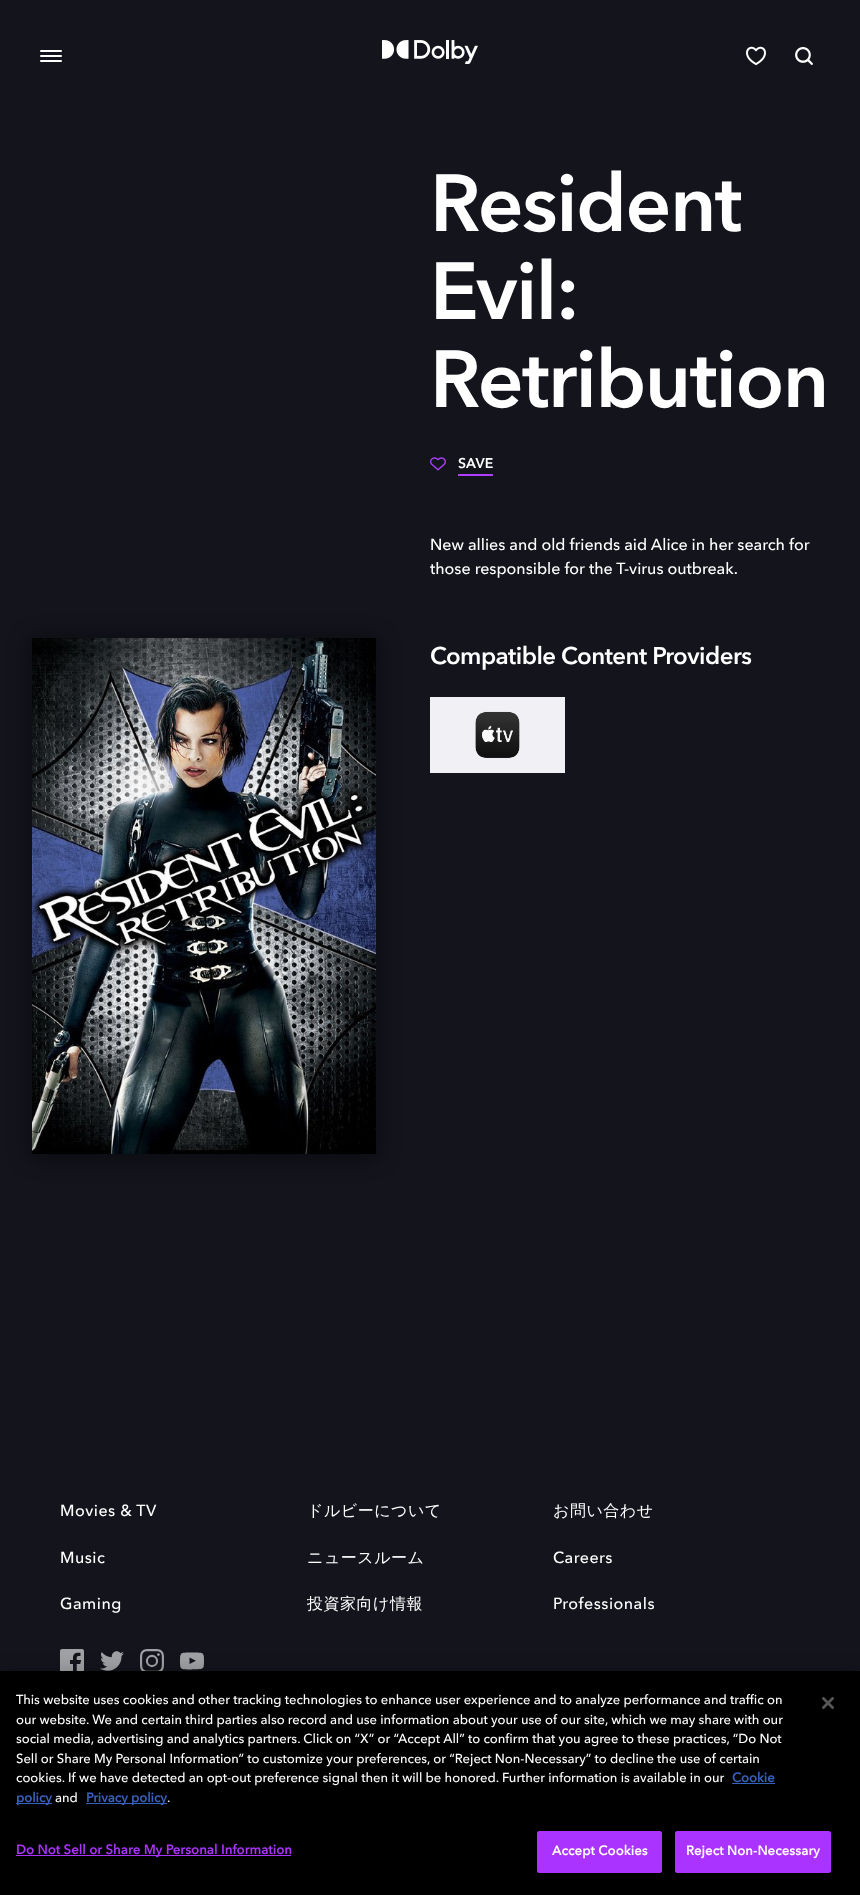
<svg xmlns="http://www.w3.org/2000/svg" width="860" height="1895">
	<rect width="100%" height="100%" fill="#13141C" />
	<rect x="40" y="50" width="22" height="2" rx="1" fill="#FFFFFF" />
	<rect x="40" y="55" width="22" height="2" rx="1" fill="#FFFFFF" />
	<rect x="40" y="60" width="22" height="2" rx="1" fill="#FFFFFF" />
	<image x="382" y="40" width="96" height="24" href="assets/img1.png" />
	<image x="746" y="46" width="20" height="20" href="assets/img2.png" />
	<image x="795" y="47" width="18" height="18" href="assets/img3.png" />
	<g font-family="Avenir Next" font-size="80" font-weight="600" letter-spacing="-1.5" fill="#FFFFFF">
		<text x="430" y="231">Resident</text>
		<text x="430" y="319">Evil:</text>
		<text x="430" y="407">Retribution</text>
	</g>
	<image x="430" y="457" width="16" height="14" href="assets/img4.png" />
	<text x="458" y="468" font-family="Avenir Next" font-size="14" font-weight="600" fill="#FFFFFF">SAVE</text>
	<rect x="458" y="474" width="35" height="2" fill="#AE3FFF" />
	<g font-family="Avenir Next" font-size="16" font-weight="500" fill="#FFFFFF">
		<text x="430" y="550">New allies and old friends aid Alice in her search for</text>
		<text x="430" y="574">those responsible for the T-virus outbreak.</text>
	</g>
	<rect x="32" y="640" width="344" height="516" fill="#000000" fill-opacity="0.5" filter="blur(11.5px)" />
	<image x="32" y="638" width="344" height="516" href="assets/img5.png" />
	<text x="430" y="664" font-family="Avenir Next" font-size="24" font-weight="600" letter-spacing="-0.5" fill="#FFFFFF">Compatible Content Providers</text>
	<image x="430" y="697" width="135" height="76" href="assets/img6.png" />
	<g font-family="Avenir Next" font-size="16" font-weight="500" letter-spacing="0.5" fill="#FFFFFF">
		<text x="60" y="1516">Movies &amp; TV</text>
		<text x="60" y="1563">Music</text>
		<text x="60" y="1609">Gaming</text>
	</g>
	<g font-family="WenQuanYi Zen Hei" font-size="16" font-weight="500" letter-spacing="0.5" fill="#FFFFFF">
		<text x="307" y="1516">ドルビーについて</text>
		<text x="307" y="1563">ニュースルーム</text>
		<text x="307" y="1609">投資家向け情報</text>
		<text x="553" y="1516">お問い合わせ</text>
	</g>
	<g font-family="Avenir Next" font-size="16" font-weight="500" letter-spacing="0.5" fill="#FFFFFF">
		<text x="553" y="1563">Careers</text>
		<text x="553" y="1609">Professionals</text>
	</g>
	<image x="60" y="1649" width="24" height="22" href="assets/img7.png" />
	<image x="100" y="1651" width="24" height="20" href="assets/img8.png" />
	<image x="140" y="1649" width="24" height="22" href="assets/img9.png" />
	<image x="180" y="1652" width="24" height="18" href="assets/img10.png" />
	<rect x="0" y="1671" width="860" height="224" fill="#000000" fill-opacity="0.2" filter="blur(9px)" />
	<rect x="0" y="1671" width="860" height="224" fill="#000000" />
	<g font-family="Avenir Next" font-size="13" font-weight="500" fill="#FFFFFF">
		<text x="16" y="1704">This website uses cookies and other tracking technologies to enhance user experience and to analyze performance and traffic on</text>
		<text x="16" y="1724">our website. We and certain third parties also record and use information about your use of our site, which we may share with our</text>
		<text x="16" y="1743">social media, advertising and analytics partners. Click on “X” or “Accept All” to confirm that you agree to these practices, “Do Not</text>
		<text x="16" y="1763">Sell or Share My Personal Information” to customize your preferences, or “Reject Non-Necessary” to decline the use of certain</text>
		<text x="16" y="1782">cookies. If we have detected an opt-out preference signal then it will be honored. Further information is available in our</text>
	</g>
	<text x="732" y="1782" font-family="Avenir Next" font-size="13" font-weight="700" fill="#3860BE">Cookie</text>
	<rect x="732" y="1783" width="43" height="1" fill="#3860BE" />
	<rect x="16" y="1803" width="36" height="1" fill="#3860BE" />
	<text x="16" y="1802" font-family="Avenir Next" font-size="13" font-weight="700" fill="#3860BE">policy</text>
	<text x="55" y="1802" font-family="Avenir Next" font-size="13" font-weight="500" fill="#FFFFFF">and</text>
	<rect x="86" y="1803" width="81" height="1" fill="#3860BE" />
	<text x="86" y="1802" font-family="Avenir Next" font-size="13" font-weight="700" fill="#3860BE">Privacy policy</text>
	<text x="167" y="1802" font-family="Avenir Next" font-size="13" font-weight="500" fill="#FFFFFF">.</text>
	<rect x="16" y="1855" width="275" height="1" fill="#AA33FF" />
	<text x="16" y="1854" font-family="Avenir Next" font-size="13" font-weight="700" letter-spacing="0.15" fill="#AA33FF">Do Not Sell or Share My Personal Information</text>
	<rect x="537.5" y="1831.5" width="124" height="41" rx="1.5" fill="#AA33FF" stroke="#AA33FF" />
	<text x="552" y="1855" font-family="Avenir Next" font-size="13" font-weight="700" letter-spacing="0.15" fill="#FFFFFF">Accept Cookies</text>
	<rect x="675.5" y="1831.5" width="155" height="41" rx="1.5" fill="#AA33FF" stroke="#AA33FF" />
	<text x="686" y="1855" font-family="Avenir Next" font-size="13" font-weight="700" letter-spacing="0.15" fill="#FFFFFF">Reject Non-Necessary</text>
	<image x="822" y="1697" width="12" height="12" href="assets/img11.png" />
</svg>
